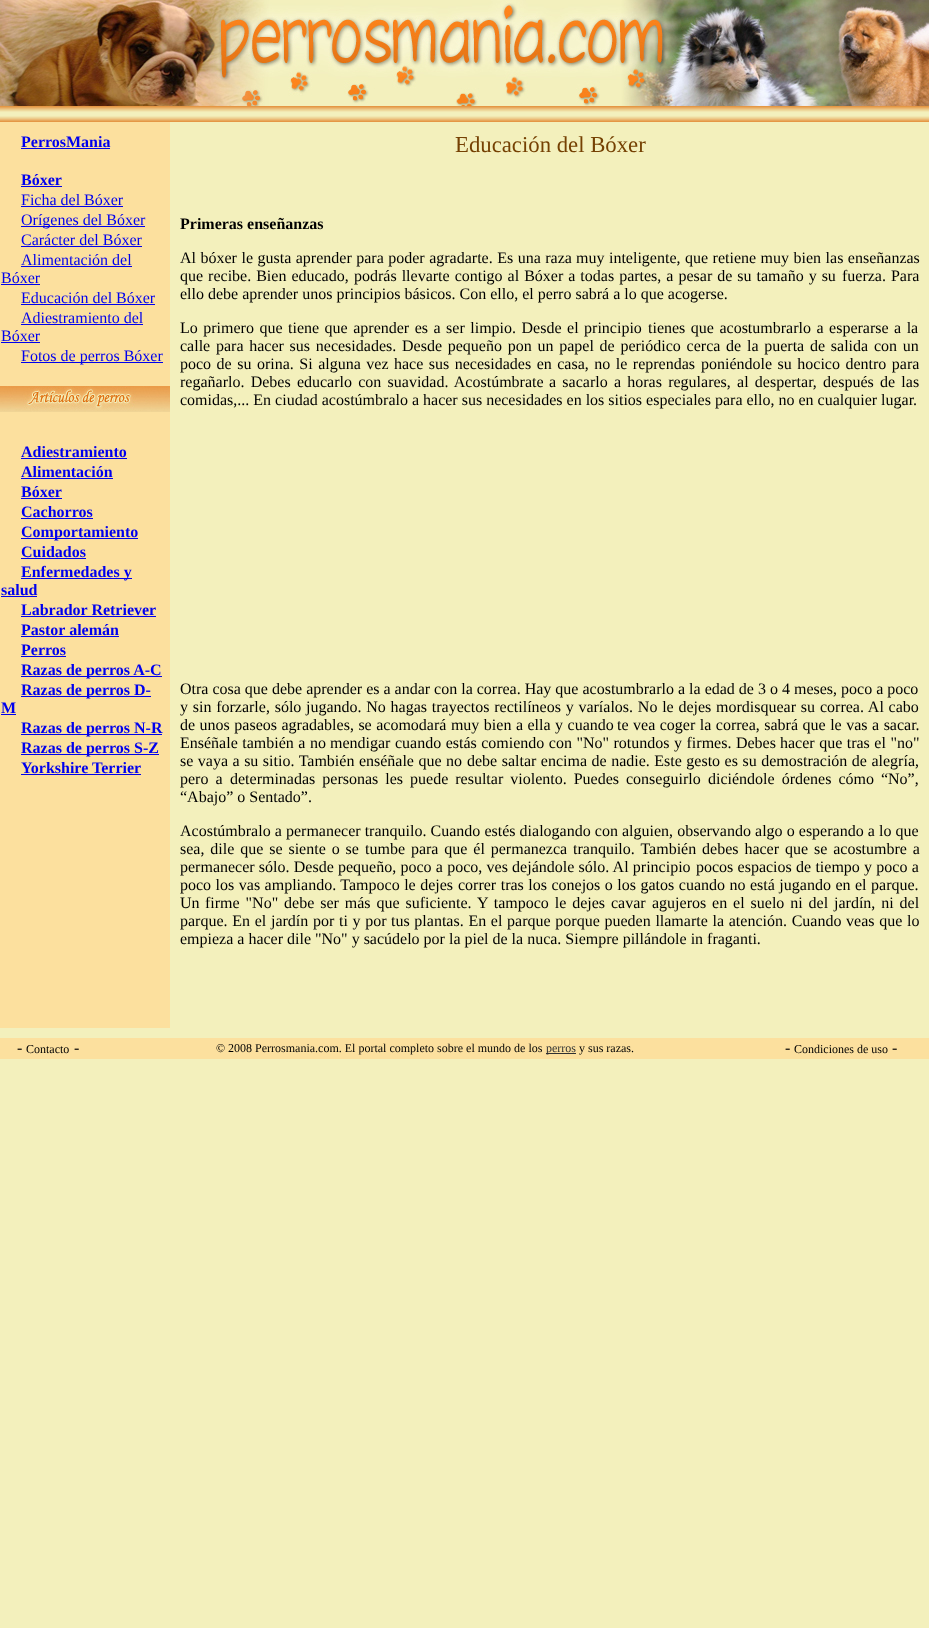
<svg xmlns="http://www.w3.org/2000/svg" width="929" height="1628">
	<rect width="100%" height="100%" fill="#F3F0BC" />
	<image x="0" y="0" width="929" height="106" href="assets/img1.png" />
	<image x="0" y="106" width="929" height="16" href="assets/img2.png" />
	<rect x="0" y="122" width="170" height="906" fill="#FCE09E" />
	<text x="21" y="147" font-family="Liberation Serif" font-size="16" font-weight="700" fill="#0000EE">PerrosMania</text>
	<rect x="21" y="148" width="89" height="1" fill="#0000EE" />
	<text x="21" y="185" font-family="Liberation Serif" font-size="16" font-weight="700" fill="#0000EE">Bóxer</text>
	<rect x="21" y="186" width="41" height="1" fill="#0000EE" />
	<text x="21" y="205" font-family="Liberation Serif" font-size="16" fill="#0000EE">Ficha del Bóxer</text>
	<rect x="21" y="206" width="102" height="1" fill="#0000EE" />
	<rect x="21" y="226" width="124" height="1" fill="#0000EE" />
	<g font-family="Liberation Serif" font-size="16" fill="#0000EE">
		<text x="21" y="225">Orígenes del Bóxer</text>
		<text x="21" y="245">Carácter del Bóxer</text>
	</g>
	<rect x="21" y="246" width="121" height="1" fill="#0000EE" />
	<text x="21" y="265" font-family="Liberation Serif" font-size="16" fill="#0000EE">Alimentación del</text>
	<rect x="21" y="266" width="111" height="1" fill="#0000EE" />
	<text x="1" y="283" font-family="Liberation Serif" font-size="16" fill="#0000EE">Bóxer</text>
	<rect x="1" y="284" width="39" height="1" fill="#0000EE" />
	<text x="21" y="303" font-family="Liberation Serif" font-size="16" fill="#0000EE">Educación del Bóxer</text>
	<rect x="21" y="304" width="134" height="1" fill="#0000EE" />
	<text x="21" y="323" font-family="Liberation Serif" font-size="16" fill="#0000EE">Adiestramiento del</text>
	<rect x="21" y="324" width="122" height="1" fill="#0000EE" />
	<text x="1" y="341" font-family="Liberation Serif" font-size="16" fill="#0000EE">Bóxer</text>
	<rect x="1" y="342" width="39" height="1" fill="#0000EE" />
	<rect x="21" y="362" width="142" height="1" fill="#0000EE" />
	<text x="21" y="361" font-family="Liberation Serif" font-size="16" fill="#0000EE">Fotos de perros Bóxer</text>
	<image x="0" y="386" width="170" height="26" href="assets/img3.png" />
	<text x="21" y="457" font-family="Liberation Serif" font-size="16" font-weight="700" fill="#0000EE">Adiestramiento</text>
	<rect x="21" y="458" width="106" height="1" fill="#0000EE" />
	<text x="21" y="477" font-family="Liberation Serif" font-size="16" font-weight="700" fill="#0000EE">Alimentación</text>
	<rect x="21" y="478" width="92" height="1" fill="#0000EE" />
	<text x="21" y="497" font-family="Liberation Serif" font-size="16" font-weight="700" fill="#0000EE">Bóxer</text>
	<rect x="21" y="498" width="41" height="1" fill="#0000EE" />
	<text x="21" y="517" font-family="Liberation Serif" font-size="16" font-weight="700" fill="#0000EE">Cachorros</text>
	<rect x="21" y="518" width="72" height="1" fill="#0000EE" />
	<rect x="21" y="538" width="117" height="1" fill="#0000EE" />
	<g font-family="Liberation Serif" font-size="16" font-weight="700" fill="#0000EE">
		<text x="21" y="537">Comportamiento</text>
		<text x="21" y="557">Cuidados</text>
	</g>
	<rect x="21" y="558" width="65" height="1" fill="#0000EE" />
	<rect x="21" y="578" width="111" height="1" fill="#0000EE" />
	<g font-family="Liberation Serif" font-size="16" font-weight="700" fill="#0000EE">
		<text x="21" y="577">Enfermedades y</text>
		<text x="1" y="595">salud</text>
	</g>
	<rect x="1" y="596" width="36" height="1" fill="#0000EE" />
	<text x="21" y="615" font-family="Liberation Serif" font-size="16" font-weight="700" fill="#0000EE">Labrador Retriever</text>
	<rect x="21" y="616" width="135" height="1" fill="#0000EE" />
	<text x="21" y="635" font-family="Liberation Serif" font-size="16" font-weight="700" fill="#0000EE">Pastor alemán</text>
	<rect x="21" y="636" width="98" height="1" fill="#0000EE" />
	<text x="21" y="655" font-family="Liberation Serif" font-size="16" font-weight="700" fill="#0000EE">Perros</text>
	<rect x="21" y="656" width="45" height="1" fill="#0000EE" />
	<rect x="21" y="676" width="141" height="1" fill="#0000EE" />
	<text x="21" y="675" font-family="Liberation Serif" font-size="16" font-weight="700" fill="#0000EE">Razas de perros A-C</text>
	<rect x="21" y="696" width="130" height="1" fill="#0000EE" />
	<g font-family="Liberation Serif" font-size="16" font-weight="700" fill="#0000EE">
		<text x="21" y="695">Razas de perros D-</text>
		<text x="1" y="713">M</text>
	</g>
	<rect x="1" y="714" width="15" height="1" fill="#0000EE" />
	<rect x="21" y="734" width="141" height="1" fill="#0000EE" />
	<text x="21" y="733" font-family="Liberation Serif" font-size="16" font-weight="700" fill="#0000EE">Razas de perros N-R</text>
	<rect x="21" y="754" width="138" height="1" fill="#0000EE" />
	<g font-family="Liberation Serif" font-size="16" font-weight="700" fill="#0000EE">
		<text x="21" y="753">Razas de perros S-Z</text>
		<text x="21" y="773">Yorkshire Terrier</text>
	</g>
	<rect x="21" y="774" width="120" height="1" fill="#0000EE" />
	<text x="455" y="152" font-family="Liberation Serif" font-size="22.75" fill="#754103">Educación del Bóxer</text>
	<text x="180" y="229" font-family="Liberation Serif" font-size="16" font-weight="700" fill="#000000">Primeras enseñanzas</text>
	<g font-family="Liberation Serif" font-size="16" fill="#000000">
		<text x="180" y="263" word-spacing="0.5">Al bóxer le gusta aprender para poder agradarte. Es una raza</text>
		<text x="576" y="263" word-spacing="0.5">muy inteligente, que retiene muy bien las enseñanzas</text>
		<text x="180" y="281" word-spacing="1">que recibe. Bien educado,</text>
		<text x="354" y="281" word-spacing="1">podrás llevarte contigo al Bóxer a todas partes, a pesar de su tamaño y su</text>
		<text x="842" y="281" word-spacing="1">fuerza. Para</text>
		<text x="180" y="299">ello debe aprender unos principios básicos. Con ello, el perro sabrá a lo que acogerse.</text>
		<text x="180" y="333" word-spacing="1.5">Lo primero que tiene que aprender es a ser limpio. Desde el principio</text>
		<text x="648" y="333" word-spacing="1.5">tienes que acostumbrarlo a esperarse a la</text>
		<text x="180" y="351" word-spacing="1.75">calle para hacer sus necesidades.</text>
		<text x="402" y="351" word-spacing="1.75">Desde pequeño pon un papel de periódico cerca de la puerta de salida con un</text>
		<text x="180" y="369" word-spacing="1.5">poco de su orina. Si alguna vez hace sus necesidades en casa, no le reprendas</text>
		<text x="701" y="369" word-spacing="1.5">poniéndole su hocico dentro para</text>
		<text x="180" y="387" word-spacing="2.25">regañarlo. Debes educarlo con suavidad. Acostúmbrate</text>
		<text x="549" y="387" word-spacing="2.25">a sacarlo a horas regulares, al despertar, después de las</text>
		<text x="180" y="405">comidas,... En ciudad acostúmbralo a hacer sus necesidades en los sitios especiales para ello, no en cualquier lugar.</text>
		<text x="180" y="694">Otra cosa que debe aprender es a andar con la correa. Hay que acostumbrarlo a la edad de 3 o 4 meses, poco a poco</text>
		<text x="180" y="712" word-spacing="0.75">y sin forzarle, sólo</text>
		<text x="306" y="712" word-spacing="0.75">jugando. No hagas trayectos rectilíneos y varíalos. No le dejes mordisquear su</text>
		<text x="820" y="712" word-spacing="0.75">correa. Al cabo</text>
		<text x="180" y="730" word-spacing="0.5">de unos paseos agradables, se acomodará muy bien a ella y cuando</text>
		<text x="617" y="730" word-spacing="0.5">te vea coger la correa, sabrá que le vas a sacar.</text>
		<text x="180" y="748" word-spacing="0.5">Enséñale también a no</text>
		<text x="330" y="748" word-spacing="0.5">mendigar cuando estás comiendo con "No" rotundos y firmes. Debes</text>
		<text x="780" y="748" word-spacing="0.5">hacer que tras el "no"</text>
		<text x="180" y="766" word-spacing="0.5">se vaya a su sitio. También enséñale que no</text>
		<text x="467" y="766" word-spacing="0.5">debe saltar encima de nadie. Este gesto es su demostración de alegría,</text>
		<text x="180" y="784" word-spacing="3">pero a</text>
		<text x="230" y="784" word-spacing="3">determinadas personas les puede resultar violento. Puedes conseguirlo</text>
		<text x="708" y="784" word-spacing="3">diciéndole órdenes cómo “No”,</text>
		<text x="180" y="802">“Abajo” o Sentado”.</text>
		<text x="180" y="836" word-spacing="0.1">Acostúmbralo a permanecer tranquilo. Cuando estés dialogando con alguien, observando algo o esperando a lo que</text>
		<text x="180" y="854" word-spacing="1.9">sea, dile que se siente o se</text>
		<text x="365" y="854" word-spacing="1.9">tumbe para que él permanezca tranquilo. También debes hacer que se acostumbre a</text>
		<text x="180" y="872" word-spacing="0.25">permanecer sólo. Desde pequeño, poco a poco, ves dejándole sólo. Al principio</text>
		<text x="696" y="872" word-spacing="0.25">pocos espacios de tiempo y poco a</text>
		<text x="180" y="890" word-spacing="0.5">poco los vas ampliando. Tampoco le dejes</text>
		<text x="458" y="890" word-spacing="0.5">correr tras los conejos o los gatos cuando no está jugando en el parque.</text>
		<text x="180" y="908">Un</text>
		<text x="205" y="908" word-spacing="1.9">firme "No" debe ser más que suficiente. Y tampoco le dejes cavar</text>
		<text x="652" y="908" word-spacing="1.9">agujeros en el suelo ni del jardín, ni del</text>
		<text x="180" y="926" word-spacing="0.7">parque. En el jardín por ti y por</text>
		<text x="391" y="926" word-spacing="0.7">tus plantas. En el parque porque pueden llamarte la atención. Cuando veas que</text>
		<text x="907" y="926">lo</text>
		<text x="180" y="944">empieza a hacer dile "No" y sacúdelo por la piel de la nuca. Siempre pillándole in fraganti.</text>
	</g>
	<rect x="0" y="1038" width="929" height="21" fill="#FCE09E" />
	<text x="17" y="1053" font-family="Liberation Serif" font-size="16" fill="#000000">-</text>
	<text x="26" y="1053" font-family="Liberation Serif" font-size="12" fill="#000000">Contacto</text>
	<text x="74" y="1053" font-family="Liberation Serif" font-size="16" fill="#000000">-</text>
	<text x="216" y="1052" font-family="Liberation Serif" font-size="12" fill="#000000">© 2008 Perrosmania.com. El portal completo sobre el mundo de los</text>
	<rect x="546" y="1053" width="30" height="1" fill="#303132" />
	<text x="546" y="1052" font-family="Liberation Serif" font-size="12" fill="#303132">perros</text>
	<text x="579" y="1052" font-family="Liberation Serif" font-size="12" fill="#000000">y sus razas.</text>
	<text x="785" y="1053" font-family="Liberation Serif" font-size="16" fill="#000000">-</text>
	<text x="794" y="1053" font-family="Liberation Serif" font-size="12" fill="#000000">Condiciones de uso</text>
	<text x="892" y="1053" font-family="Liberation Serif" font-size="16" fill="#000000">-</text>
</svg>
